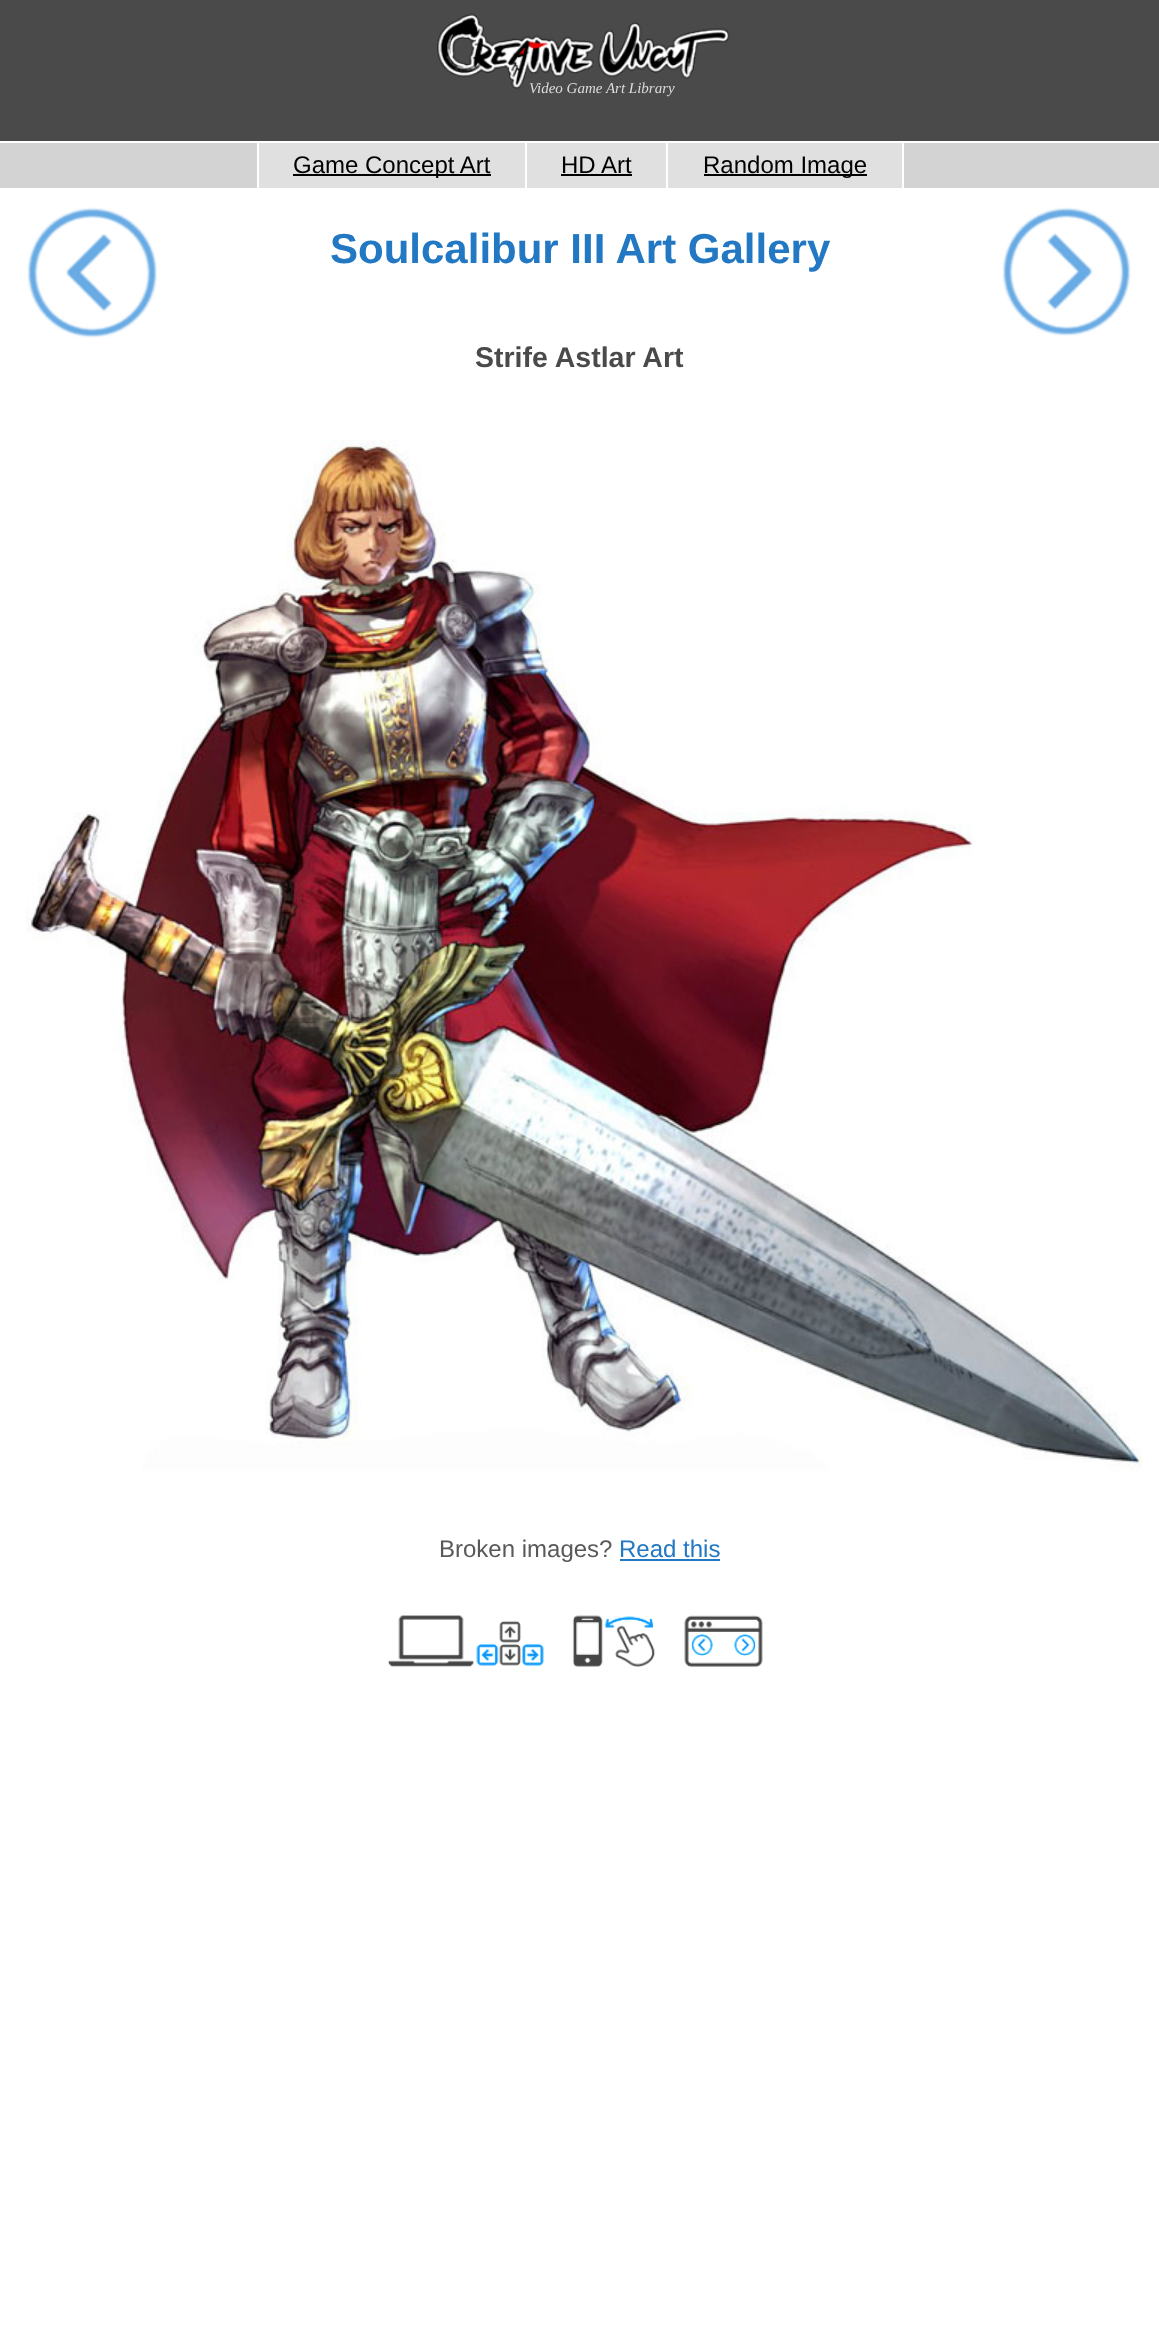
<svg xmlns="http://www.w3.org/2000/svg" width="1159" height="2343">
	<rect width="100%" height="100%" fill="#FFFFFF" />
	<rect x="0" y="0" width="1159" height="141" fill="#4A4A4A" />
	<image x="437" y="13" width="293" height="76" href="assets/img1.png" />
	<text x="529" y="93" font-family="Liberation Serif" font-size="15" font-style="italic" fill="#DDDDDD">Video Game Art Library</text>
	<rect x="0" y="143" width="1159" height="45" fill="#D3D3D3" />
	<rect x="259" y="143" width="266" height="45" fill="#E0E0E0" />
	<rect x="257" y="143" width="2" height="45" fill="#FFFFFF" />
	<rect x="293" y="174" width="198" height="2" fill="#000000" />
	<text x="293" y="173" font-family="Liberation Sans" font-size="24" fill="#000000">Game Concept Art</text>
	<rect x="527" y="143" width="139" height="45" fill="#E0E0E0" />
	<rect x="525" y="143" width="2" height="45" fill="#FFFFFF" />
	<text x="561" y="173" font-family="Liberation Sans" font-size="24" fill="#000000">HD Art</text>
	<rect x="561" y="174" width="71" height="2" fill="#000000" />
	<rect x="668" y="143" width="234" height="45" fill="#E0E0E0" />
	<rect x="902" y="143" width="2" height="45" fill="#FFFFFF" />
	<rect x="666" y="143" width="2" height="45" fill="#FFFFFF" />
	<rect x="704" y="174" width="163" height="2" fill="#000000" />
	<text x="703" y="173" font-family="Liberation Sans" font-size="24" fill="#000000">Random Image</text>
	<image x="27" y="207" width="130" height="131" href="assets/img2.png" />
	<text x="330" y="263" font-family="Liberation Sans" font-size="42" font-weight="700" fill="#2278C3">Soulcalibur III Art Gallery</text>
	<image x="1002" y="207" width="129" height="129" href="assets/img3.png" />
	<text x="475" y="367" font-family="Liberation Sans" font-size="28.5" font-weight="700" fill="#4A4A4A">Strife Astlar Art</text>
	<image x="26" y="439" width="1116" height="1032" href="assets/img4.png" />
	<text x="439" y="1557" font-family="Liberation Sans" font-size="24" fill="#595959">Broken images?</text>
	<text x="619" y="1557" font-family="Liberation Sans" font-size="24" fill="#2278C3">Read this</text>
	<rect x="620" y="1559" width="100" height="2" fill="#2278C3" />
	<image x="388" y="1615" width="375" height="52" href="assets/img5.png" />
</svg>
